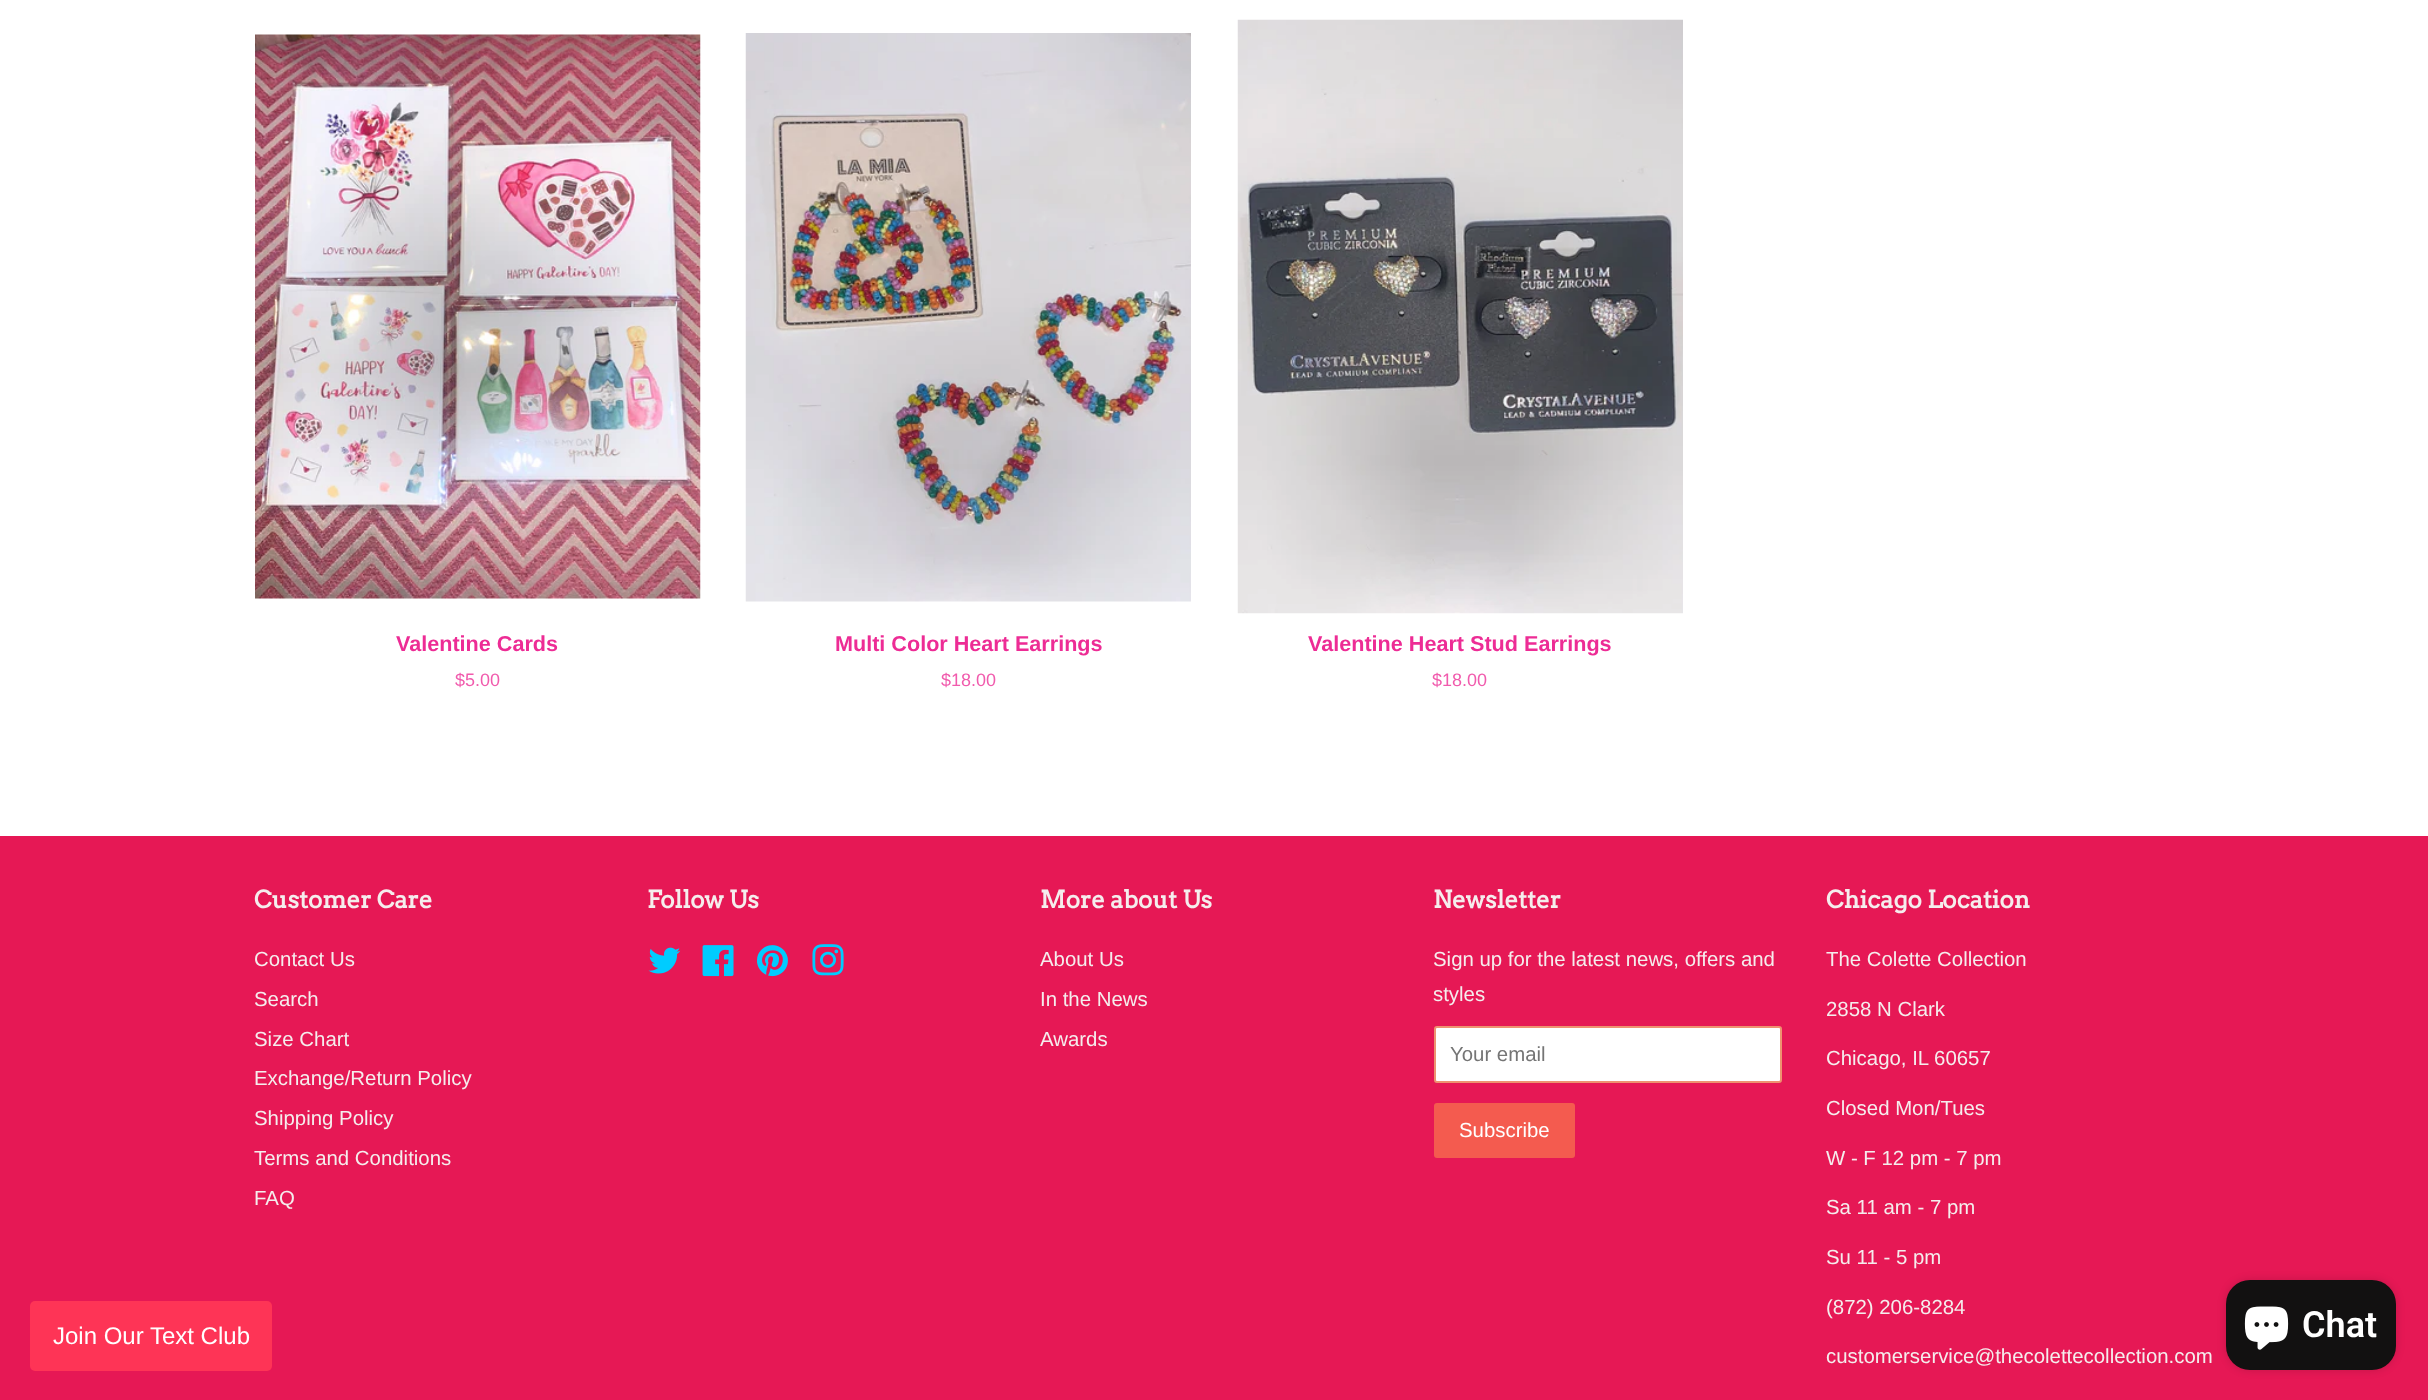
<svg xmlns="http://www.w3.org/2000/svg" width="2428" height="1400">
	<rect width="100%" height="100%" fill="#FFFFFF" />
	<image x="255" y="34" width="446" height="565" href="assets/img1.png" />
	<text x="396" y="651" font-family="Liberation Sans" font-size="21.6" font-weight="700" fill="#ED2C95">Valentine Cards</text>
	<text x="455" y="686" font-family="Liberation Sans" font-size="18" fill="#F15BAD">$5.00</text>
	<image x="745" y="33" width="446" height="569" href="assets/img2.png" />
	<text x="835" y="651" font-family="Liberation Sans" font-size="21.6" font-weight="700" fill="#ED2C95">Multi Color Heart Earrings</text>
	<text x="941" y="686" font-family="Liberation Sans" font-size="18" fill="#F15BAD">$18.00</text>
	<image x="1237" y="19" width="446" height="595" href="assets/img3.png" />
	<text x="1308" y="651" font-family="Liberation Sans" font-size="21.6" font-weight="700" fill="#ED2C95">Valentine Heart Stud Earrings</text>
	<text x="1432" y="686" font-family="Liberation Sans" font-size="18" fill="#F15BAD">$18.00</text>
	<rect x="0" y="836" width="2428" height="564" fill="#E61855" />
	<rect x="30" y="1301" width="242" height="70" rx="5" fill="#FE3456" />
	<text x="53" y="1344" font-family="Liberation Sans" font-size="24" fill="#FFFFFF">Join Our Text Club</text>
	<text x="254" y="908" font-family="Arvo" font-size="24" font-weight="700" fill="#F5EDED">Customer Care</text>
	<g font-family="Liberation Sans" font-size="20.4" fill="#F5EDED">
		<text x="254" y="966">Contact Us</text>
		<text x="254" y="1006">Search</text>
		<text x="254" y="1046">Size Chart</text>
		<text x="254" y="1085">Exchange/Return Policy</text>
		<text x="254" y="1125">Shipping Policy</text>
		<text x="254" y="1165">Terms and Conditions</text>
		<text x="254" y="1205">FAQ</text>
	</g>
	<text x="647" y="908" font-family="Arvo" font-size="24" font-weight="700" fill="#F5EDED">Follow Us</text>
	<image x="648" y="947" width="33" height="27" href="assets/img4.png" />
	<image x="702" y="945" width="32" height="32" href="assets/img5.png" />
	<image x="757" y="945" width="31" height="32" href="assets/img6.png" />
	<image x="812" y="944" width="32" height="32" href="assets/img7.png" />
	<text x="1040" y="908" font-family="Arvo" font-size="24" font-weight="700" fill="#F5EDED">More about Us</text>
	<g font-family="Liberation Sans" font-size="20.4" fill="#F5EDED">
		<text x="1040" y="966">About Us</text>
		<text x="1040" y="1006">In the News</text>
		<text x="1040" y="1046">Awards</text>
	</g>
	<text x="1433" y="908" font-family="Arvo" font-size="24" font-weight="700" fill="#F5EDED">Newsletter</text>
	<g font-family="Liberation Sans" font-size="20.4" fill="#F5EDED">
		<text x="1433" y="966">Sign up for the latest news, offers and</text>
		<text x="1433" y="1001">styles</text>
	</g>
	<rect x="1435" y="1027" width="346" height="55" rx="2" fill="#FFFFFF" stroke="#EE9270" stroke-width="2" />
	<text x="1450" y="1061" font-family="Liberation Sans" font-size="20.4" fill="#757575">Your email</text>
	<rect x="1434" y="1103" width="141" height="55" rx="3" fill="#F45B4F" />
	<text x="1459" y="1137" font-family="Liberation Sans" font-size="20.4" fill="#FFFFFF">Subscribe</text>
	<text x="1826" y="908" font-family="Arvo" font-size="24" font-weight="700" fill="#F5EDED">Chicago Location</text>
	<g font-family="Liberation Sans" font-size="20.4" fill="#F5EDED">
		<text x="1826" y="966">The Colette Collection</text>
		<text x="1826" y="1016">2858 N Clark</text>
		<text x="1826" y="1065">Chicago, IL 60657</text>
		<text x="1826" y="1115">Closed Mon/Tues</text>
		<text x="1826" y="1165">W - F 12 pm - 7 pm</text>
		<text x="1826" y="1214">Sa 11 am - 7 pm</text>
		<text x="1826" y="1264">Su 11 - 5 pm</text>
		<text x="1826" y="1314">(872) 206-8284</text>
		<text x="1826" y="1363">customerservice@thecolettecollection.com</text>
	</g>
	<rect x="2226" y="1280" width="170" height="90" rx="24" fill="#000000" fill-opacity="0.15" filter="blur(4px)" />
	<rect x="2226" y="1280" width="170" height="90" rx="24" fill="#121111" />
	<image x="2244" y="1306" width="45" height="44" href="assets/img8.png" />
	<text x="2302" y="1337" font-family="Roboto" font-size="36" font-weight="600" fill="#FFFFFF">Chat</text>
</svg>
